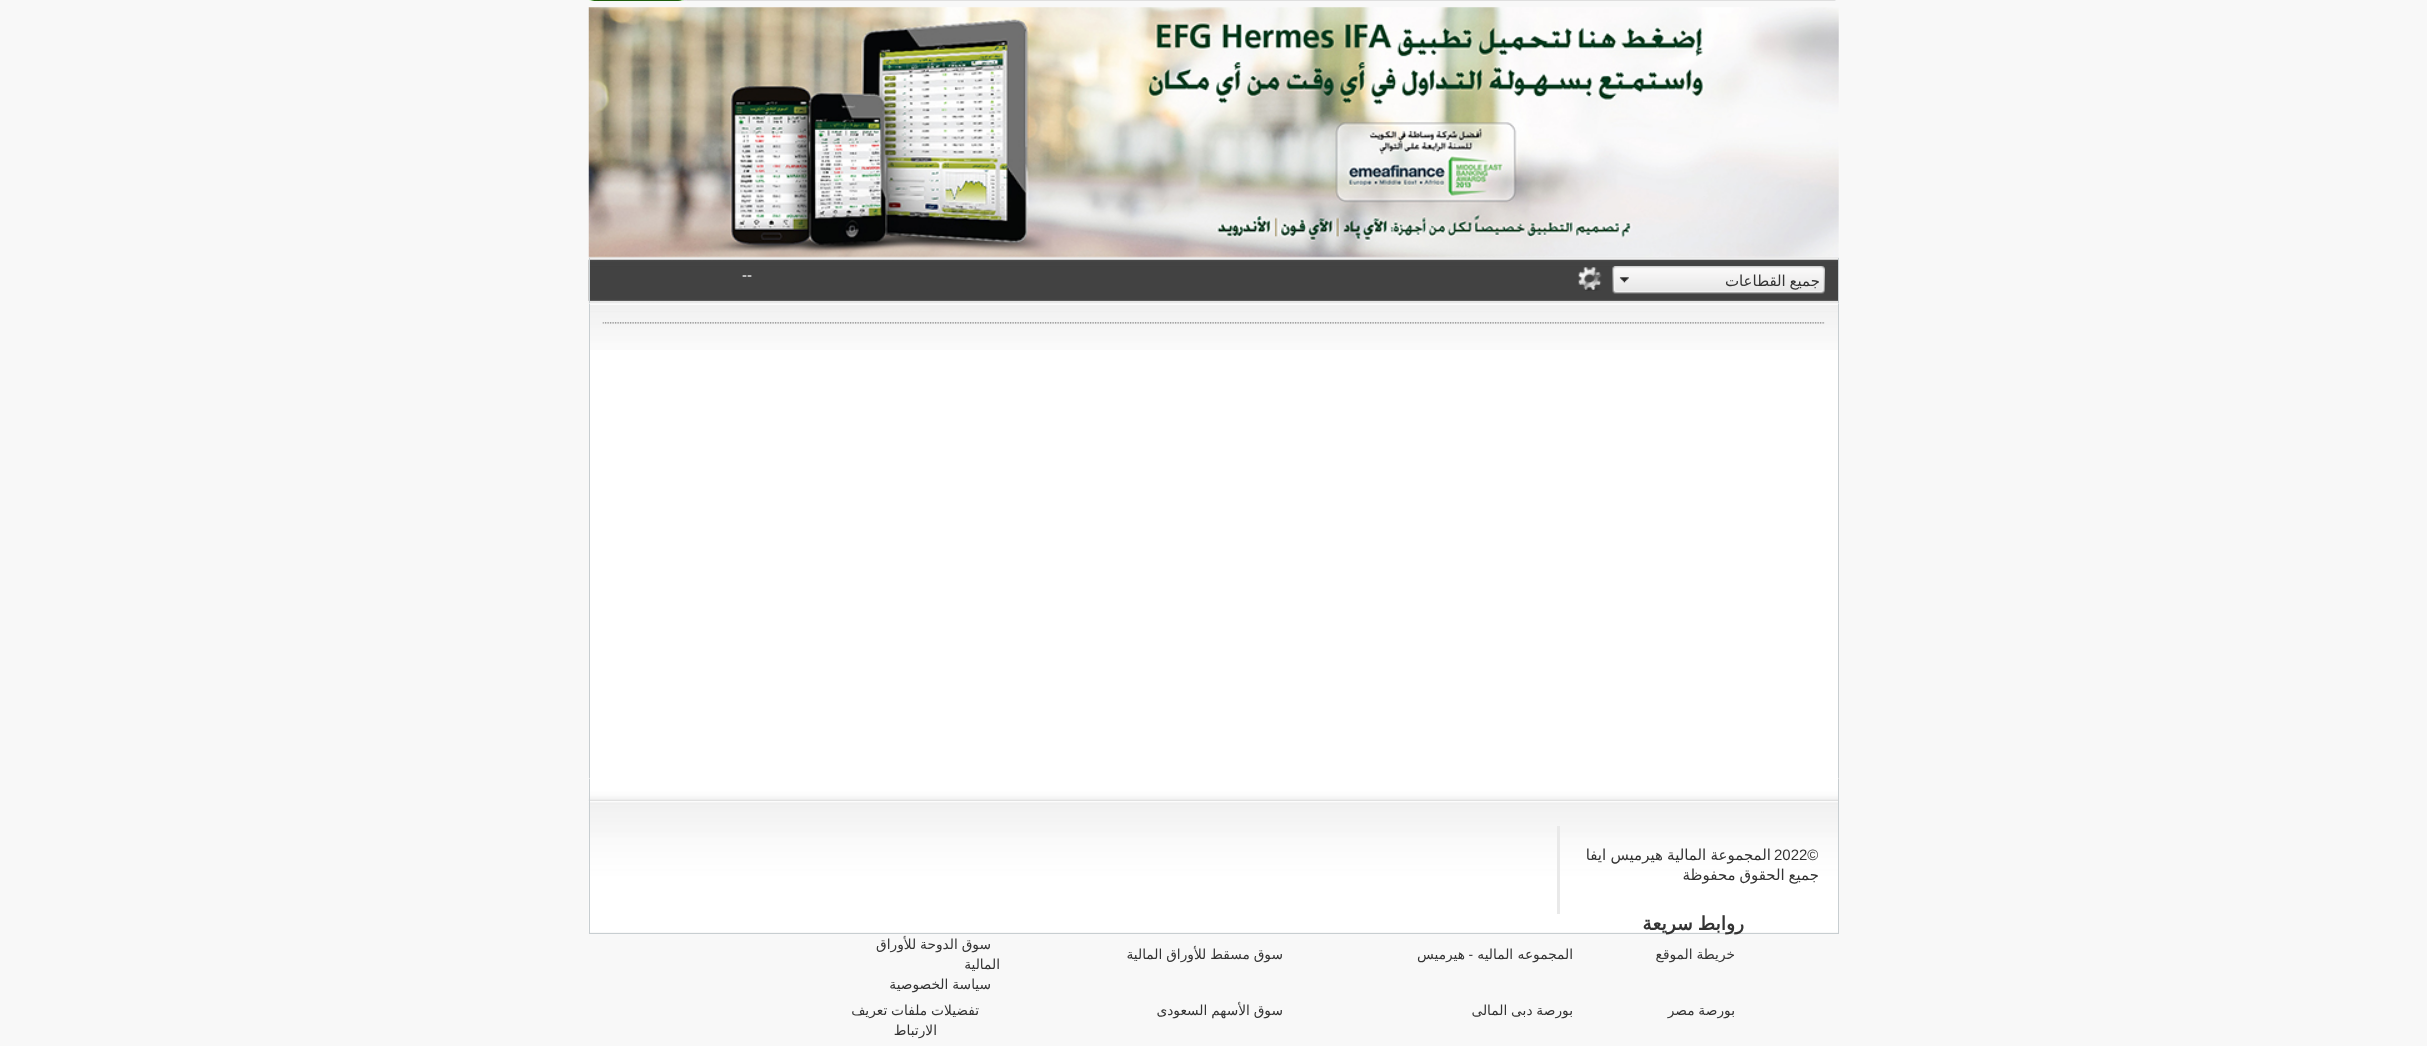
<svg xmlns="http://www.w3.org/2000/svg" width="2427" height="1046">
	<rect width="100%" height="100%" fill="#F8F8F8" />
	<image x="1825" y="0" width="11" height="1" href="assets/img1.png" />
	<image x="589" y="0" width="98" height="1" href="assets/img3.png" />
	<image x="686" y="0" width="1139" height="1" href="assets/img2.png" />
	<image x="588" y="257" width="1251" height="47" href="assets/img5.png" />
	<image x="588" y="7" width="1251" height="251" href="assets/img4.png" />
	<rect x="1838" y="258" width="1" height="46" fill="#C8CED1" />
	<rect x="589" y="258" width="1" height="46" fill="#C8CED1" />
	<image x="1635" y="266" width="190" height="28" href="assets/img6.png" />
	<text x="1820" y="286" word-spacing="-1" font-family="DejaVu Sans" font-size="15" direction="rtl" fill="#333333">جميع القطاعات</text>
	<image x="1612" y="266" width="23" height="28" href="assets/img7.png" />
	<image x="1578" y="267" width="24" height="24" href="assets/img8.png" />
	<text x="742" y="280" font-family="Liberation Sans" font-size="15" fill="#FFFFFF">--</text>
	<rect x="590" y="350" width="1248" height="429" fill="#FFFFFF" />
	<image x="589" y="303" width="1250" height="47" href="assets/img9.png" />
	<rect x="1838" y="304" width="1" height="475" fill="#C8CED1" />
	<rect x="589" y="304" width="1" height="475" fill="#C8CED1" />
	<image x="602" y="322" width="1223" height="2" href="assets/img10.png" />
	<image x="588" y="778" width="1251" height="154" href="assets/img11.png" />
	<rect x="1838" y="779" width="1" height="155" fill="#C8CED1" />
	<rect x="589" y="933" width="1250" height="1" fill="#C8CED1" />
	<rect x="589" y="779" width="1" height="155" fill="#C8CED1" />
	<text x="1774" y="860" font-family="Liberation Sans" font-size="15" fill="#333333">2022©</text>
	<g font-family="DejaVu Sans" font-size="15" direction="rtl" fill="#333333">
		<text x="1771" y="860" word-spacing="-0.5">المجموعة المالية هيرميس ايفا</text>
		<text x="1819" y="880" word-spacing="-1">جميع الحقوق محفوظة</text>
	</g>
	<rect x="1557" y="826" width="3" height="88" fill="#E9E9E9" />
	<text x="1744" y="930" word-spacing="-1" font-family="DejaVu Sans" font-size="18.75" font-weight="700" direction="rtl" fill="#333333">روابط سريعة</text>
	<g font-family="DejaVu Sans" font-size="13.75" direction="rtl" fill="#333333">
		<text x="1735" y="959" word-spacing="-0.5">خريطة الموقع</text>
		<text x="1573" y="959">المجموعه الماليه</text>
	</g>
	<text x="1473" y="959" font-family="Liberation Sans" font-size="13.75" direction="rtl" fill="#333333">-</text>
	<g font-family="DejaVu Sans" font-size="13.75" direction="rtl" fill="#333333">
		<text x="1465" y="959">هيرميس</text>
		<text x="1283" y="959" word-spacing="-0.5">سوق مسقط للأوراق المالية</text>
		<text x="991" y="949" word-spacing="-0.5">سوق الدوحة للأوراق</text>
		<text x="1000" y="969">المالية</text>
		<text x="1735" y="1015" word-spacing="-0.5">بورصة مصر</text>
		<text x="1573" y="1015" word-spacing="-0.5">بورصة دبى المالى</text>
		<text x="1283" y="1015" word-spacing="-0.5">سوق الأسهم السعودى</text>
		<text x="991" y="989" word-spacing="-0.5">سياسة الخصوصية</text>
		<text x="979" y="1015" word-spacing="-0.5">تفضيلات ملفات تعريف</text>
		<text x="937" y="1035">الارتباط</text>
	</g>
</svg>
